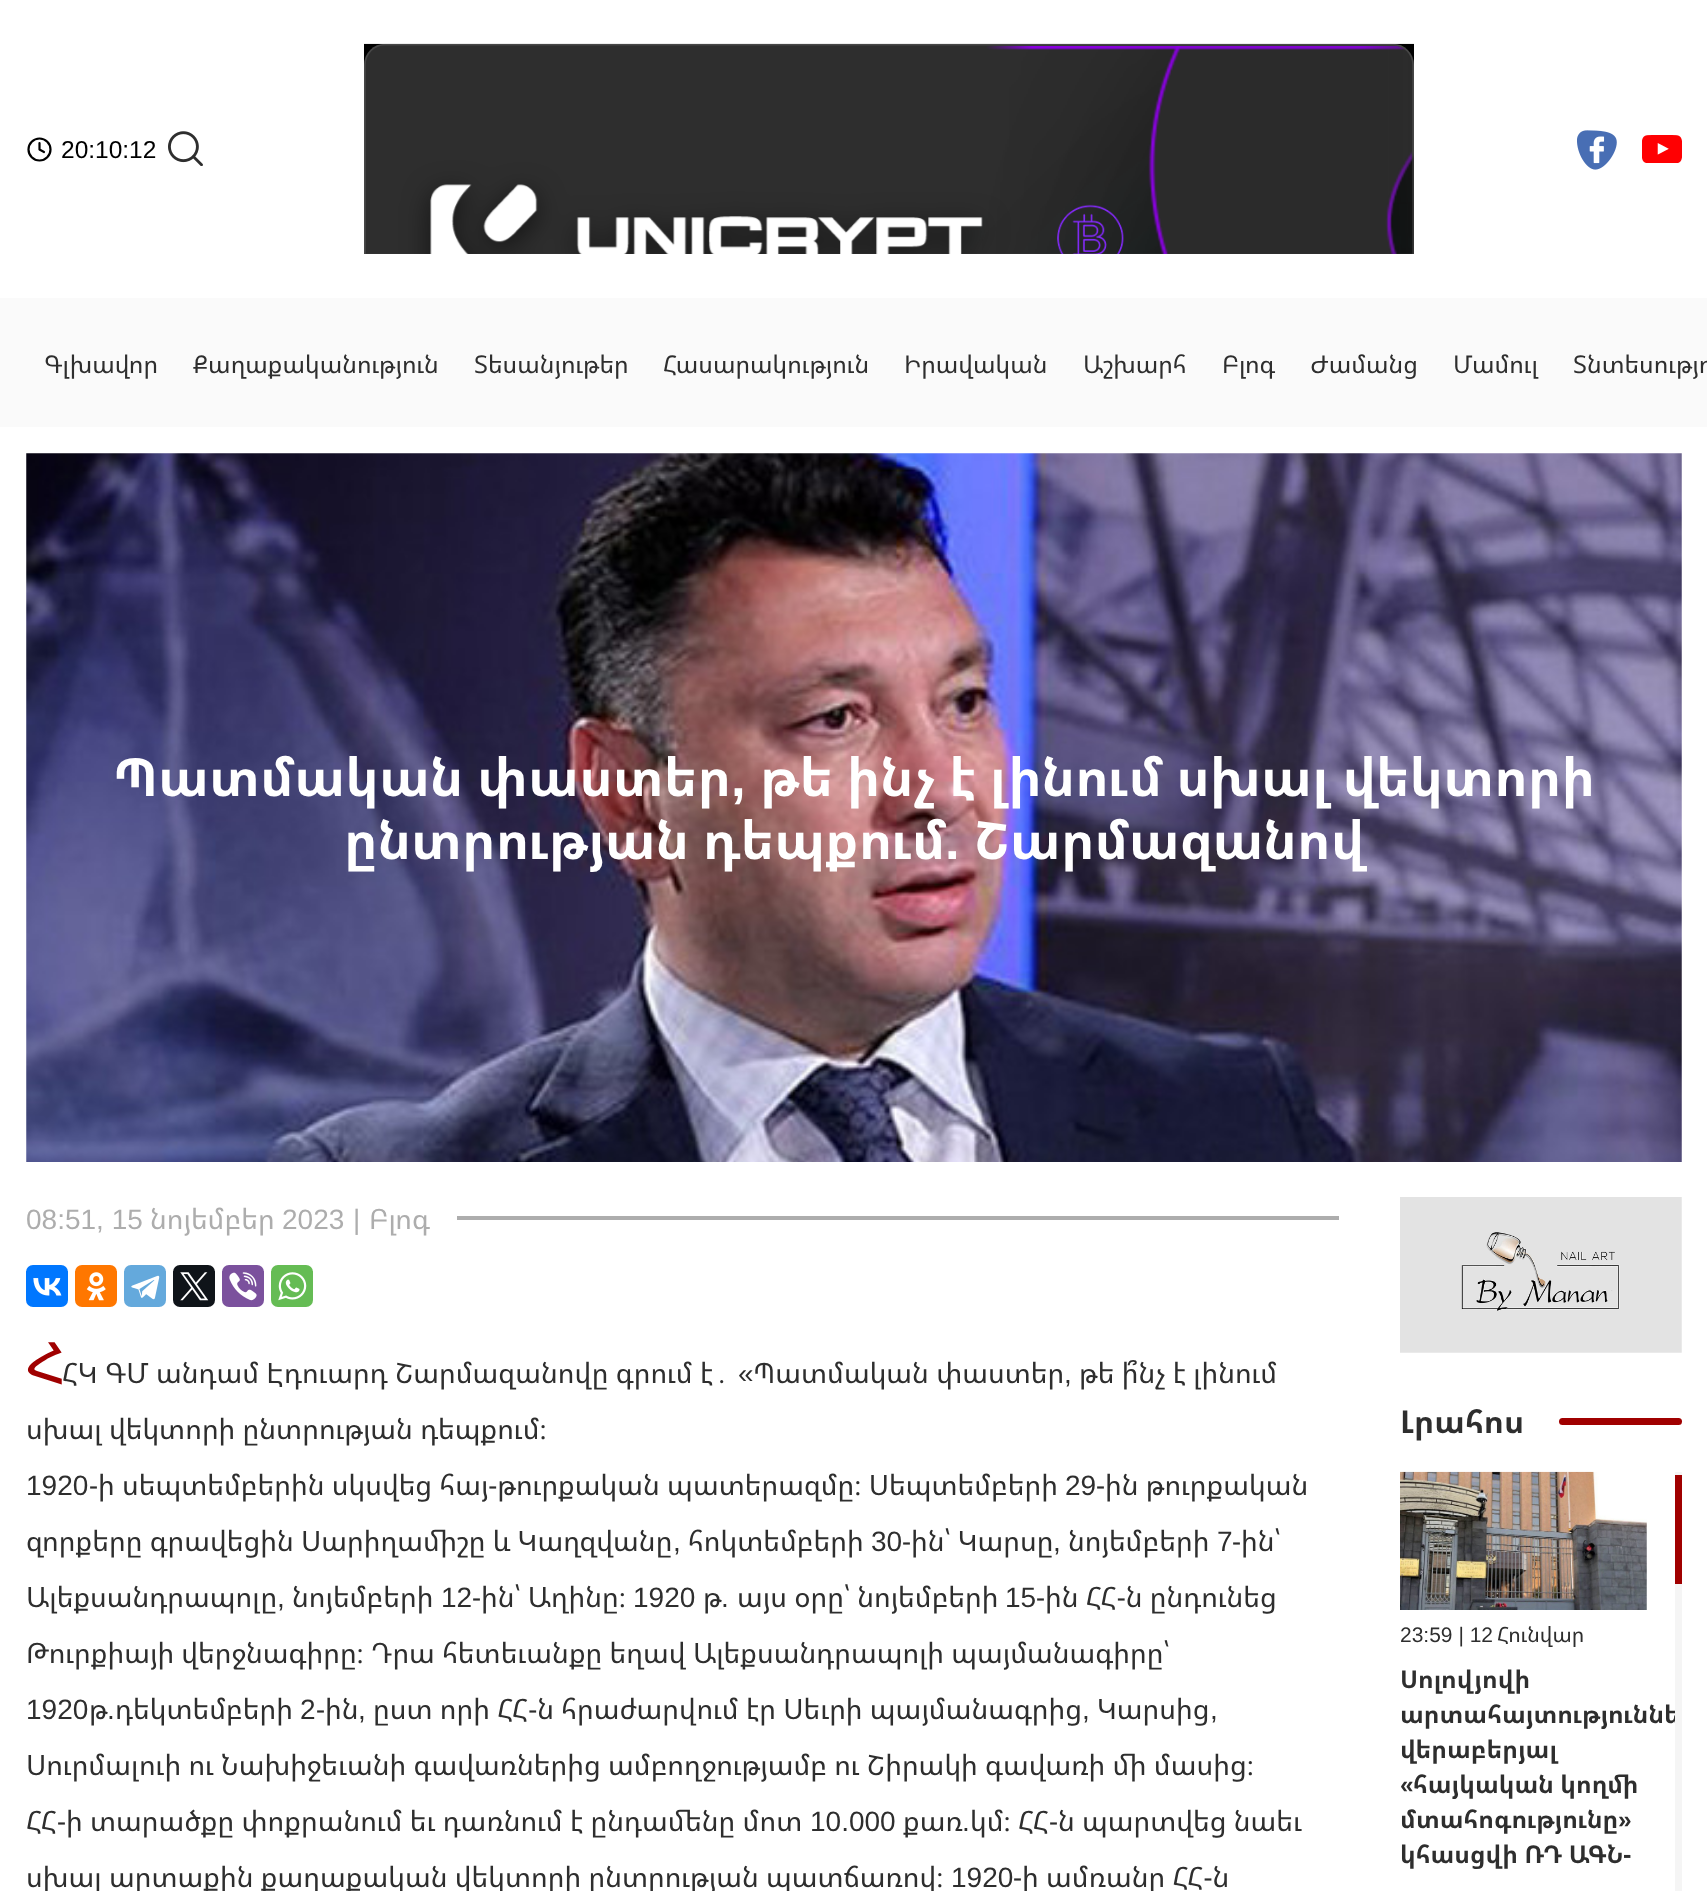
<svg xmlns="http://www.w3.org/2000/svg" width="1707" height="1891">
	<rect width="100%" height="100%" fill="#FFFFFF" />
	<circle cx="39.5" cy="149.5" r="11" fill="none" stroke="#000000" stroke-width="2.2" />
	<path d="M39.5 143V149.5L44 152" fill="none" stroke="#000000" stroke-width="2.2" stroke-linecap="round" stroke-linejoin="round" />
	<text x="61" y="158" font-family="Liberation Sans" font-size="24.5" fill="#000000">20:10:12</text>
	<image x="168" y="131" width="35" height="35" href="assets/img1.png" />
	<image x="364" y="43" width="1050" height="211" href="assets/img2.png" />
	<image x="1577" y="130" width="40" height="40" href="assets/img3.png" />
	<image x="1642" y="135" width="40" height="28" href="assets/img4.png" />
	<rect x="0" y="298" width="1707" height="129" fill="#FAFAFA" />
	<g font-family="Noto Sans Armenian" font-size="24.5" fill="#2E2E2E">
		<text x="44" y="373">Գլխավոր</text>
		<text x="193" y="373">Քաղաքականություն</text>
		<text x="474" y="373">Տեսանյութեր</text>
		<text x="663" y="373">Հասարակություն</text>
		<text x="904" y="373">Իրավական</text>
		<text x="1083" y="373">Աշխարհ</text>
		<text x="1222" y="373">Բլոգ</text>
		<text x="1310" y="373">Ժամանց</text>
		<text x="1453" y="373">Մամուլ</text>
		<text x="1573" y="373">Տնտեսությո</text>
	</g>
	<image x="26" y="453" width="1656" height="709" href="assets/img5.png" />
	<text x="113" y="796" font-family="Noto Sans Armenian" font-size="52.5" font-weight="700" fill="#FFFFFF">Պատմական փաստեր</text>
	<text x="731" y="796" font-family="Liberation Sans" font-size="52.5" font-weight="700" fill="#FFFFFF">,</text>
	<g font-family="Noto Sans Armenian" font-size="52.5" font-weight="700" fill="#FFFFFF">
		<text x="760" y="796">թե ինչ է լինում սխալ վեկտորի</text>
		<text x="344" y="859">ընտրության դեպքում</text>
	</g>
	<text x="945" y="859" font-family="Liberation Sans" font-size="52.5" font-weight="700" fill="#FFFFFF">.</text>
	<text x="974" y="859" font-family="Noto Sans Armenian" font-size="52.5" font-weight="700" fill="#FFFFFF">Շարմազանով</text>
	<text x="26" y="1229" font-family="Liberation Sans" font-size="28" fill="#ADADAD">08:51, 15</text>
	<text x="150" y="1229" font-family="Noto Sans Armenian" font-size="28" fill="#ADADAD">նոյեմբեր</text>
	<g font-family="Liberation Sans" font-size="28" fill="#ADADAD">
		<text x="282" y="1229">2023</text>
		<text x="353" y="1229">|</text>
	</g>
	<text x="369" y="1229" font-family="Noto Sans Armenian" font-size="28" fill="#ADADAD">Բլոգ</text>
	<rect x="457" y="1216" width="882" height="4" fill="#ADADAD" />
	<rect x="26" y="1265" width="42" height="42" rx="7" fill="#0077FF" />
	<image x="33" y="1278" width="29" height="18" href="assets/img6.png" />
	<rect x="75" y="1265" width="42" height="42" rx="7" fill="#FF7700" />
	<image x="86" y="1272" width="20" height="29" href="assets/img7.png" />
	<rect x="124" y="1265" width="42" height="42" rx="7" fill="#64A9DC" />
	<image x="131" y="1275" width="29" height="25" href="assets/img8.png" />
	<rect x="173" y="1265" width="42" height="42" rx="7" fill="#0F1419" />
	<image x="180" y="1272" width="29" height="29" href="assets/img9.png" />
	<rect x="222" y="1265" width="42" height="42" rx="7" fill="#7B519D" />
	<image x="229" y="1272" width="28" height="29" href="assets/img10.png" />
	<rect x="271" y="1265" width="42" height="42" rx="7" fill="#65BC54" />
	<image x="278" y="1272" width="29" height="29" href="assets/img11.png" />
	<text x="26" y="1383" font-family="Noto Sans" font-size="56" font-weight="100" fill="#A00000">Հ</text>
	<text x="62" y="1383" font-family="Noto Sans Armenian" font-size="28" fill="#2E2E2E">ՀԿ ԳՄ անդամ Էդուարդ Շարմազանովը գրում է</text>
	<text x="713" y="1383" font-family="FreeSerif" font-size="28" fill="#2E2E2E">․</text>
	<text x="738" y="1383" font-family="Liberation Sans" font-size="28" fill="#2E2E2E">«</text>
	<text x="753" y="1383" font-family="Noto Sans Armenian" font-size="28" fill="#2E2E2E">Պատմական փաստեր</text>
	<text x="1064" y="1383" font-family="Liberation Sans" font-size="28" fill="#2E2E2E">,</text>
	<g font-family="Noto Sans Armenian" font-size="28" fill="#2E2E2E">
		<text x="1079" y="1383">թե ի՞նչ է լինում</text>
		<text x="26" y="1439">սխալ վեկտորի ընտրության դեպքում։</text>
	</g>
	<text x="26" y="1495" font-family="Liberation Sans" font-size="28" fill="#2E2E2E">1920</text>
	<text x="89" y="1495" font-family="Noto Sans Armenian" font-size="28" fill="#2E2E2E">-ի սեպտեմբերին սկսվեց հայ-թուրքական պատերազմը։ Սեպտեմբերի</text>
	<text x="1065" y="1495" font-family="Liberation Sans" font-size="28" fill="#2E2E2E">29</text>
	<g font-family="Noto Sans Armenian" font-size="28" fill="#2E2E2E">
		<text x="1096" y="1495">-ին թուրքական</text>
		<text x="26" y="1551">զորքերը գրավեցին Սարիղամիշը և Կաղզվանը</text>
	</g>
	<text x="673" y="1551" font-family="Liberation Sans" font-size="28" fill="#2E2E2E">,</text>
	<text x="688" y="1551" font-family="Noto Sans Armenian" font-size="28" fill="#2E2E2E">հոկտեմբերի</text>
	<text x="871" y="1551" font-family="Liberation Sans" font-size="28" fill="#2E2E2E">30</text>
	<text x="902" y="1551" font-family="Noto Sans Armenian" font-size="28" fill="#2E2E2E">-ին՝ Կարսը</text>
	<text x="1053" y="1551" font-family="Liberation Sans" font-size="28" fill="#2E2E2E">,</text>
	<text x="1068" y="1551" font-family="Noto Sans Armenian" font-size="28" fill="#2E2E2E">նոյեմբերի</text>
	<text x="1217" y="1551" font-family="Liberation Sans" font-size="28" fill="#2E2E2E">7</text>
	<g font-family="Noto Sans Armenian" font-size="28" fill="#2E2E2E">
		<text x="1232" y="1551">-ին՝</text>
		<text x="26" y="1607">Ալեքսանդրապոլը</text>
	</g>
	<text x="277" y="1607" font-family="Liberation Sans" font-size="28" fill="#2E2E2E">,</text>
	<text x="292" y="1607" font-family="Noto Sans Armenian" font-size="28" fill="#2E2E2E">նոյեմբերի</text>
	<text x="441" y="1607" font-family="Liberation Sans" font-size="28" fill="#2E2E2E">12</text>
	<text x="472" y="1607" font-family="Noto Sans Armenian" font-size="28" fill="#2E2E2E">-ին՝ Աղինը։</text>
	<text x="633" y="1607" font-family="Liberation Sans" font-size="28" fill="#2E2E2E">1920</text>
	<text x="703" y="1607" font-family="Noto Sans Armenian" font-size="28" fill="#2E2E2E">թ</text>
	<text x="721" y="1607" font-family="Liberation Sans" font-size="28" fill="#2E2E2E">.</text>
	<text x="737" y="1607" font-family="Noto Sans Armenian" font-size="28" fill="#2E2E2E">այս օրը՝ նոյեմբերի</text>
	<text x="1005" y="1607" font-family="Liberation Sans" font-size="28" fill="#2E2E2E">15</text>
	<g font-family="Noto Sans Armenian" font-size="28" fill="#2E2E2E">
		<text x="1036" y="1607">-ին ՀՀ-ն ընդունեց</text>
		<text x="26" y="1663">Թուրքիայի վերջնագիրը։ Դրա հետեւանքը եղավ Ալեքսանդրապոլի պայմանագիրը՝</text>
	</g>
	<text x="26" y="1719" font-family="Liberation Sans" font-size="28" fill="#2E2E2E">1920</text>
	<text x="89" y="1719" font-family="Noto Sans Armenian" font-size="28" fill="#2E2E2E">թ</text>
	<text x="107" y="1719" font-family="Liberation Sans" font-size="28" fill="#2E2E2E">.</text>
	<text x="115" y="1719" font-family="Noto Sans Armenian" font-size="28" fill="#2E2E2E">դեկտեմբերի</text>
	<text x="300" y="1719" font-family="Liberation Sans" font-size="28" fill="#2E2E2E">2</text>
	<text x="316" y="1719" font-family="Noto Sans Armenian" font-size="28" fill="#2E2E2E">-ին</text>
	<text x="358" y="1719" font-family="Liberation Sans" font-size="28" fill="#2E2E2E">,</text>
	<text x="373" y="1719" font-family="Noto Sans Armenian" font-size="28" fill="#2E2E2E">ըստ որի ՀՀ-ն հրաժարվում էր Սեւրի պայմանագրից</text>
	<text x="1082" y="1719" font-family="Liberation Sans" font-size="28" fill="#2E2E2E">,</text>
	<text x="1097" y="1719" font-family="Noto Sans Armenian" font-size="28" fill="#2E2E2E">Կարսից</text>
	<text x="1210" y="1719" font-family="Liberation Sans" font-size="28" fill="#2E2E2E">,</text>
	<g font-family="Noto Sans Armenian" font-size="28" fill="#2E2E2E">
		<text x="26" y="1775">Սուրմալուի ու Նախիջեւանի գավառներից ամբողջությամբ ու Շիրակի գավառի մի մասից։</text>
		<text x="26" y="1831">ՀՀ-ի տարածքը փոքրանում եւ դառնում է ընդամենը մոտ</text>
	</g>
	<text x="810" y="1831" font-family="Liberation Sans" font-size="28" fill="#2E2E2E">10.000</text>
	<text x="903" y="1831" font-family="Noto Sans Armenian" font-size="28" fill="#2E2E2E">քառ</text>
	<text x="962" y="1831" font-family="Liberation Sans" font-size="28" fill="#2E2E2E">.</text>
	<g font-family="Noto Sans Armenian" font-size="28" fill="#2E2E2E">
		<text x="970" y="1831">կմ։ ՀՀ-ն պարտվեց նաեւ</text>
		<text x="26" y="1887">սխալ արտաքին քաղաքական վեկտորի ընտրության պատճառով։</text>
	</g>
	<text x="951" y="1887" font-family="Liberation Sans" font-size="28" fill="#2E2E2E">1920</text>
	<text x="1013" y="1887" font-family="Noto Sans Armenian" font-size="28" fill="#2E2E2E">-ի ամռանը ՀՀ-ն</text>
	<image x="1400" y="1197" width="282" height="156" href="assets/img12.png" />
	<text x="1400" y="1433" font-family="Noto Sans Armenian" font-size="31.5" font-weight="700" fill="#2E2E2E">Լրահոս</text>
	<rect x="1559" y="1418" width="123" height="7" rx="3.5" fill="#A00000" />
	<image x="1400" y="1471" width="247" height="139" href="assets/img13.png" />
	<text x="1400" y="1642" font-family="Liberation Sans" font-size="21" fill="#2E2E2E">23:59 | 12</text>
	<text x="1497" y="1642" font-family="Noto Sans Armenian" font-size="21" fill="#2E2E2E">Հունվար</text>
	<g font-family="Noto Sans Armenian" font-size="24.5" font-weight="700" fill="#2E2E2E">
		<text x="1400" y="1688">Սոլովյովի</text>
		<text x="1400" y="1723">արտահայտություննե</text>
		<text x="1400" y="1758">վերաբերյալ</text>
	</g>
	<text x="1400" y="1793" font-family="Liberation Sans" font-size="24.5" font-weight="700" fill="#2E2E2E">«</text>
	<g font-family="Noto Sans Armenian" font-size="24.5" font-weight="700" fill="#2E2E2E">
		<text x="1413" y="1793">հայկական կողմի</text>
		<text x="1400" y="1828">մտահոգությունը</text>
	</g>
	<text x="1618" y="1828" font-family="Liberation Sans" font-size="24.5" font-weight="700" fill="#2E2E2E">»</text>
	<text x="1400" y="1863" font-family="Noto Sans Armenian" font-size="24.5" font-weight="700" fill="#2E2E2E">կհասցվի ՌԴ ԱԳՆ-</text>
	<rect x="1675" y="1472" width="7" height="419" fill="#F5F5F5" />
	<rect x="1675" y="1475" width="7" height="109" fill="#A00000" />
</svg>
